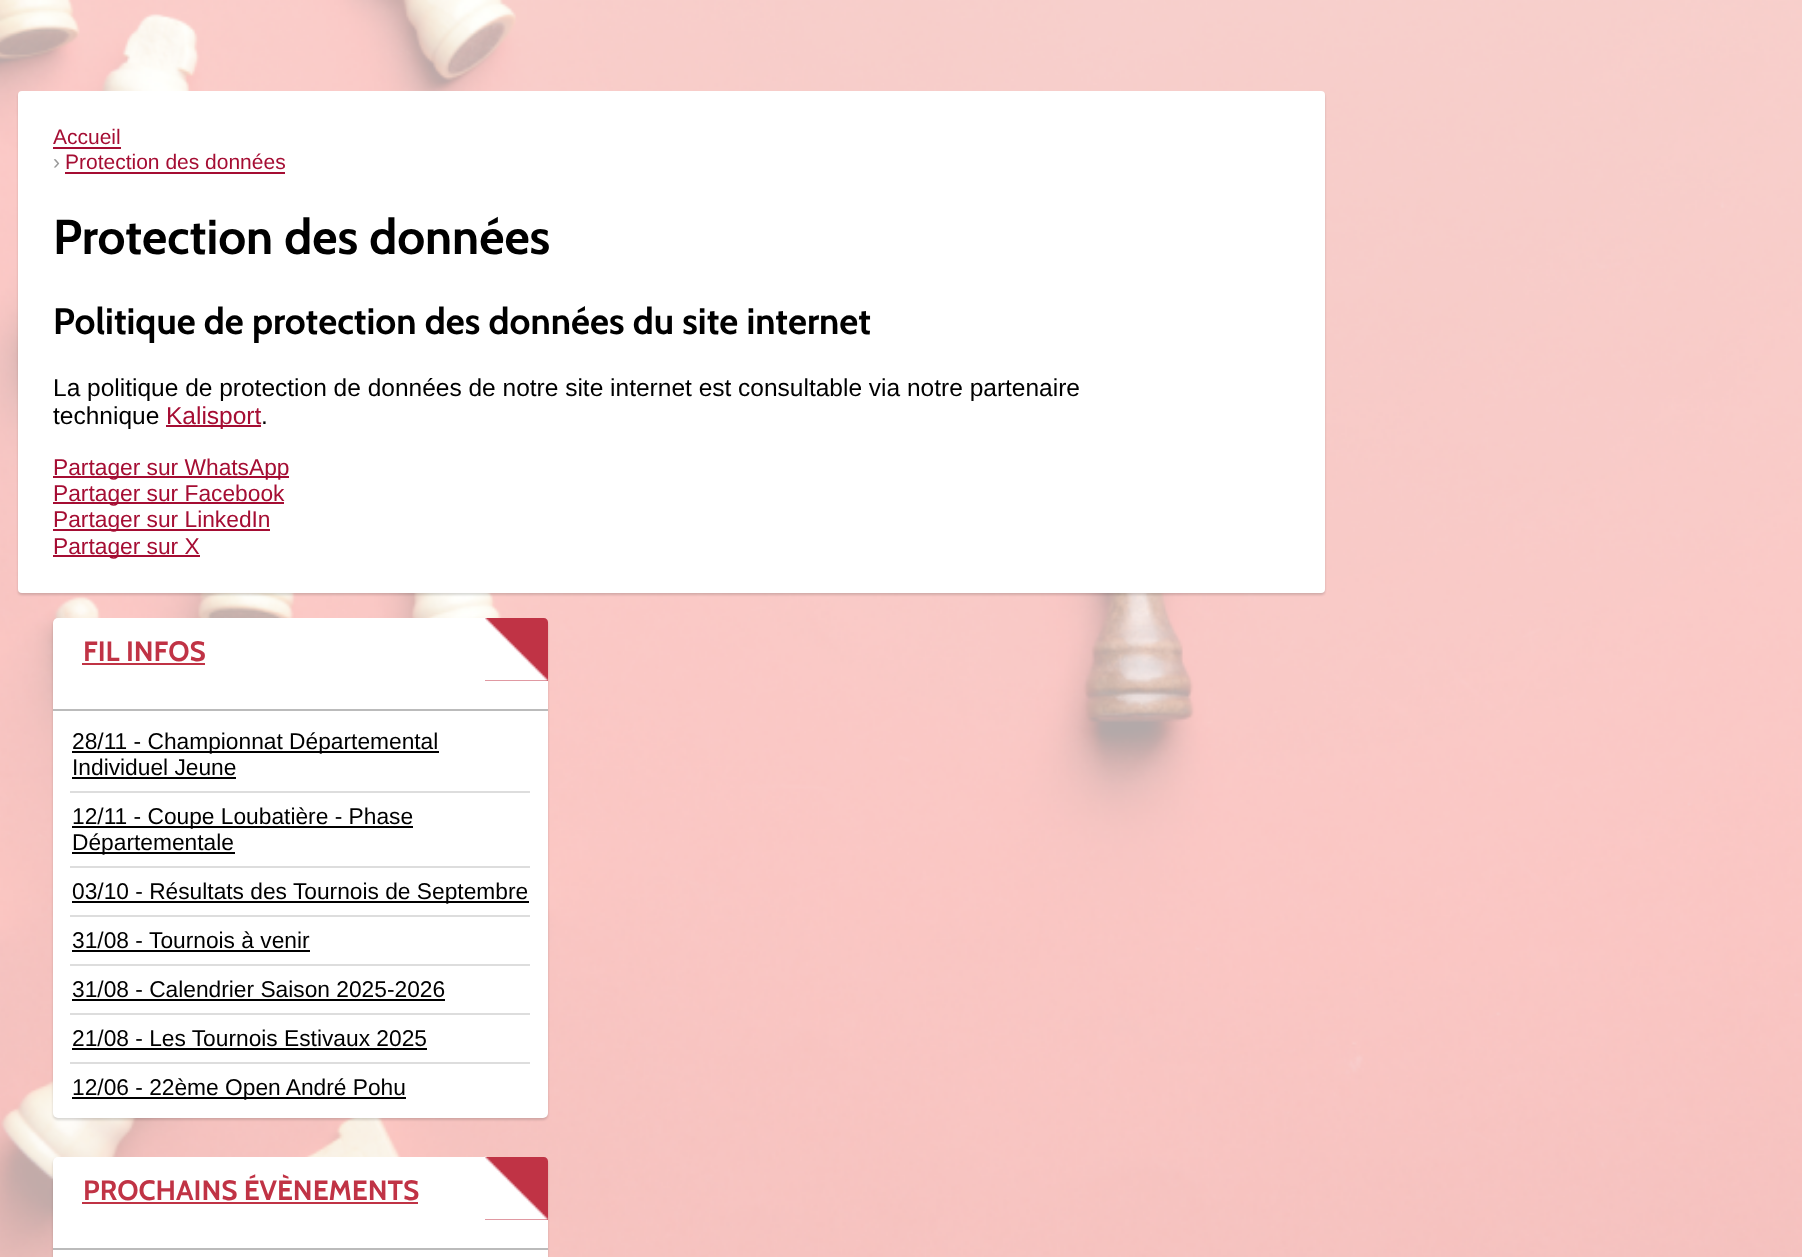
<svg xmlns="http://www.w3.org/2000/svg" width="1802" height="1257">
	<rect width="100%" height="100%" fill="#FFFFFF" />
	<image x="0" y="0" width="1802" height="1257" href="assets/img1.png" />
	<rect x="18" y="93" width="1307" height="502" rx="4" fill="#000000" fill-opacity="0.15" filter="blur(1px)" />
	<rect x="18" y="91" width="1307" height="502" rx="4" fill="#FFFFFF" />
	<text x="53" y="144" font-family="Liberation Sans" font-size="21" fill="#A50D33">Accueil</text>
	<rect x="53" y="147" width="68" height="2" fill="#A50D33" />
	<text x="53" y="169" font-family="Liberation Sans" font-size="21" fill="#999999">›</text>
	<text x="65" y="169" font-family="Liberation Sans" font-size="21" fill="#A50D33">Protection des données</text>
	<rect x="65" y="172" width="220" height="2" fill="#A50D33" />
	<text x="53" y="254" font-family="Cabin" font-size="49" font-weight="700" fill="#000000">Protection des données</text>
	<text x="53" y="334" font-family="Cabin" font-size="36.75" font-weight="700" fill="#000000">Politique de protection des données du site internet</text>
	<g font-family="Liberation Sans" font-size="24.5" fill="#000000">
		<text x="53" y="396">La politique de protection de données de notre site internet est consultable via notre partenaire</text>
		<text x="53" y="424">technique</text>
	</g>
	<rect x="166" y="425" width="95" height="2" fill="#A50D33" />
	<text x="166" y="424" font-family="Liberation Sans" font-size="24.5" fill="#A50D33">Kalisport</text>
	<text x="261" y="424" font-family="Liberation Sans" font-size="24.5" fill="#000000">.</text>
	<rect x="53" y="476" width="236" height="2" fill="#A50D33" />
	<text x="53" y="475" font-family="Liberation Sans" font-size="22.75" fill="#A50D33">Partager sur WhatsApp</text>
	<rect x="53" y="502" width="231" height="2" fill="#A50D33" />
	<text x="53" y="501" font-family="Liberation Sans" font-size="22.75" fill="#A50D33">Partager sur Facebook</text>
	<rect x="53" y="529" width="217" height="2" fill="#A50D33" />
	<text x="53" y="527" font-family="Liberation Sans" font-size="22.75" fill="#A50D33">Partager sur LinkedIn</text>
	<rect x="53" y="555" width="147" height="2" fill="#A50D33" />
	<text x="53" y="554" font-family="Liberation Sans" font-size="22.75" fill="#A50D33">Partager sur X</text>
	<rect x="53" y="620" width="495" height="500" rx="5" fill="#000000" fill-opacity="0.15" filter="blur(1px)" />
	<rect x="53" y="618" width="495" height="500" rx="5" fill="#FFFFFF" />
	<rect x="53" y="709" width="495" height="2" fill="#BBBBBB" />
	<text x="83" y="661" font-family="Cabin" font-size="28" font-weight="700" fill="#C03345">FIL INFOS</text>
	<rect x="82" y="663" width="123" height="2" fill="#C03345" />
	<path d="M485 618H544C546 618 548 620 548 622V681H485Z" fill="#C03345" />
	<image x="485" y="617" width="63" height="64" href="assets/img2.png" />
	<rect x="70" y="791" width="460" height="2" fill="#DDDDDD" />
	<rect x="72" y="751" width="367" height="2" fill="#000000" />
	<g font-family="Liberation Sans" font-size="22.75" fill="#000000">
		<text x="72" y="749">28/11 - Championnat Départemental</text>
		<text x="72" y="775">Individuel Jeune</text>
	</g>
	<rect x="72" y="777" width="164" height="2" fill="#000000" />
	<rect x="70" y="866" width="460" height="2" fill="#DDDDDD" />
	<rect x="72" y="826" width="341" height="2" fill="#000000" />
	<text x="72" y="824" font-family="Liberation Sans" font-size="22.75" fill="#000000">12/11 - Coupe Loubatière - Phase</text>
	<rect x="72" y="852" width="163" height="2" fill="#000000" />
	<text x="72" y="850" font-family="Liberation Sans" font-size="22.75" fill="#000000">Départementale</text>
	<rect x="70" y="915" width="460" height="2" fill="#DDDDDD" />
	<rect x="72" y="901" width="457" height="2" fill="#000000" />
	<text x="72" y="899" font-family="Liberation Sans" font-size="22.75" fill="#000000">03/10 - Résultats des Tournois de Septembre</text>
	<rect x="70" y="964" width="460" height="2" fill="#DDDDDD" />
	<text x="72" y="948" font-family="Liberation Sans" font-size="22.75" fill="#000000">31/08 -</text>
	<rect x="72" y="950" width="238" height="2" fill="#000000" />
	<text x="149" y="948" font-family="Liberation Sans" font-size="22.75" fill="#000000">Tournois à venir</text>
	<rect x="70" y="1013" width="460" height="2" fill="#DDDDDD" />
	<text x="72" y="997" font-family="Liberation Sans" font-size="22.75" fill="#000000">31/08 - Calendrier Saison 2025-2026</text>
	<rect x="72" y="999" width="373" height="2" fill="#000000" />
	<rect x="70" y="1062" width="460" height="2" fill="#DDDDDD" />
	<text x="72" y="1046" font-family="Liberation Sans" font-size="22.75" fill="#000000">21/08 - Les Tournois Estivaux 2025</text>
	<rect x="72" y="1048" width="355" height="2" fill="#000000" />
	<rect x="72" y="1097" width="334" height="2" fill="#000000" />
	<text x="72" y="1095" font-family="Liberation Sans" font-size="22.75" fill="#000000">12/06 - 22ème Open André Pohu</text>
	<rect x="53" y="1159" width="495" height="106" rx="5" fill="#000000" fill-opacity="0.15" filter="blur(1px)" />
	<rect x="53" y="1157" width="495" height="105" rx="5" fill="#FFFFFF" />
	<rect x="53" y="1248" width="495" height="2" fill="#BBBBBB" />
	<text x="83" y="1200" font-family="Cabin" font-size="28" font-weight="700" fill="#C03345">PROCHAINS ÉVÈNEMENTS</text>
	<rect x="82" y="1202" width="336" height="2" fill="#C03345" />
	<path d="M485 1157H544C546 1157 548 1159 548 1161V1220H485Z" fill="#C03345" />
	<image x="484" y="1156" width="64" height="64" href="assets/img3.png" />
</svg>
